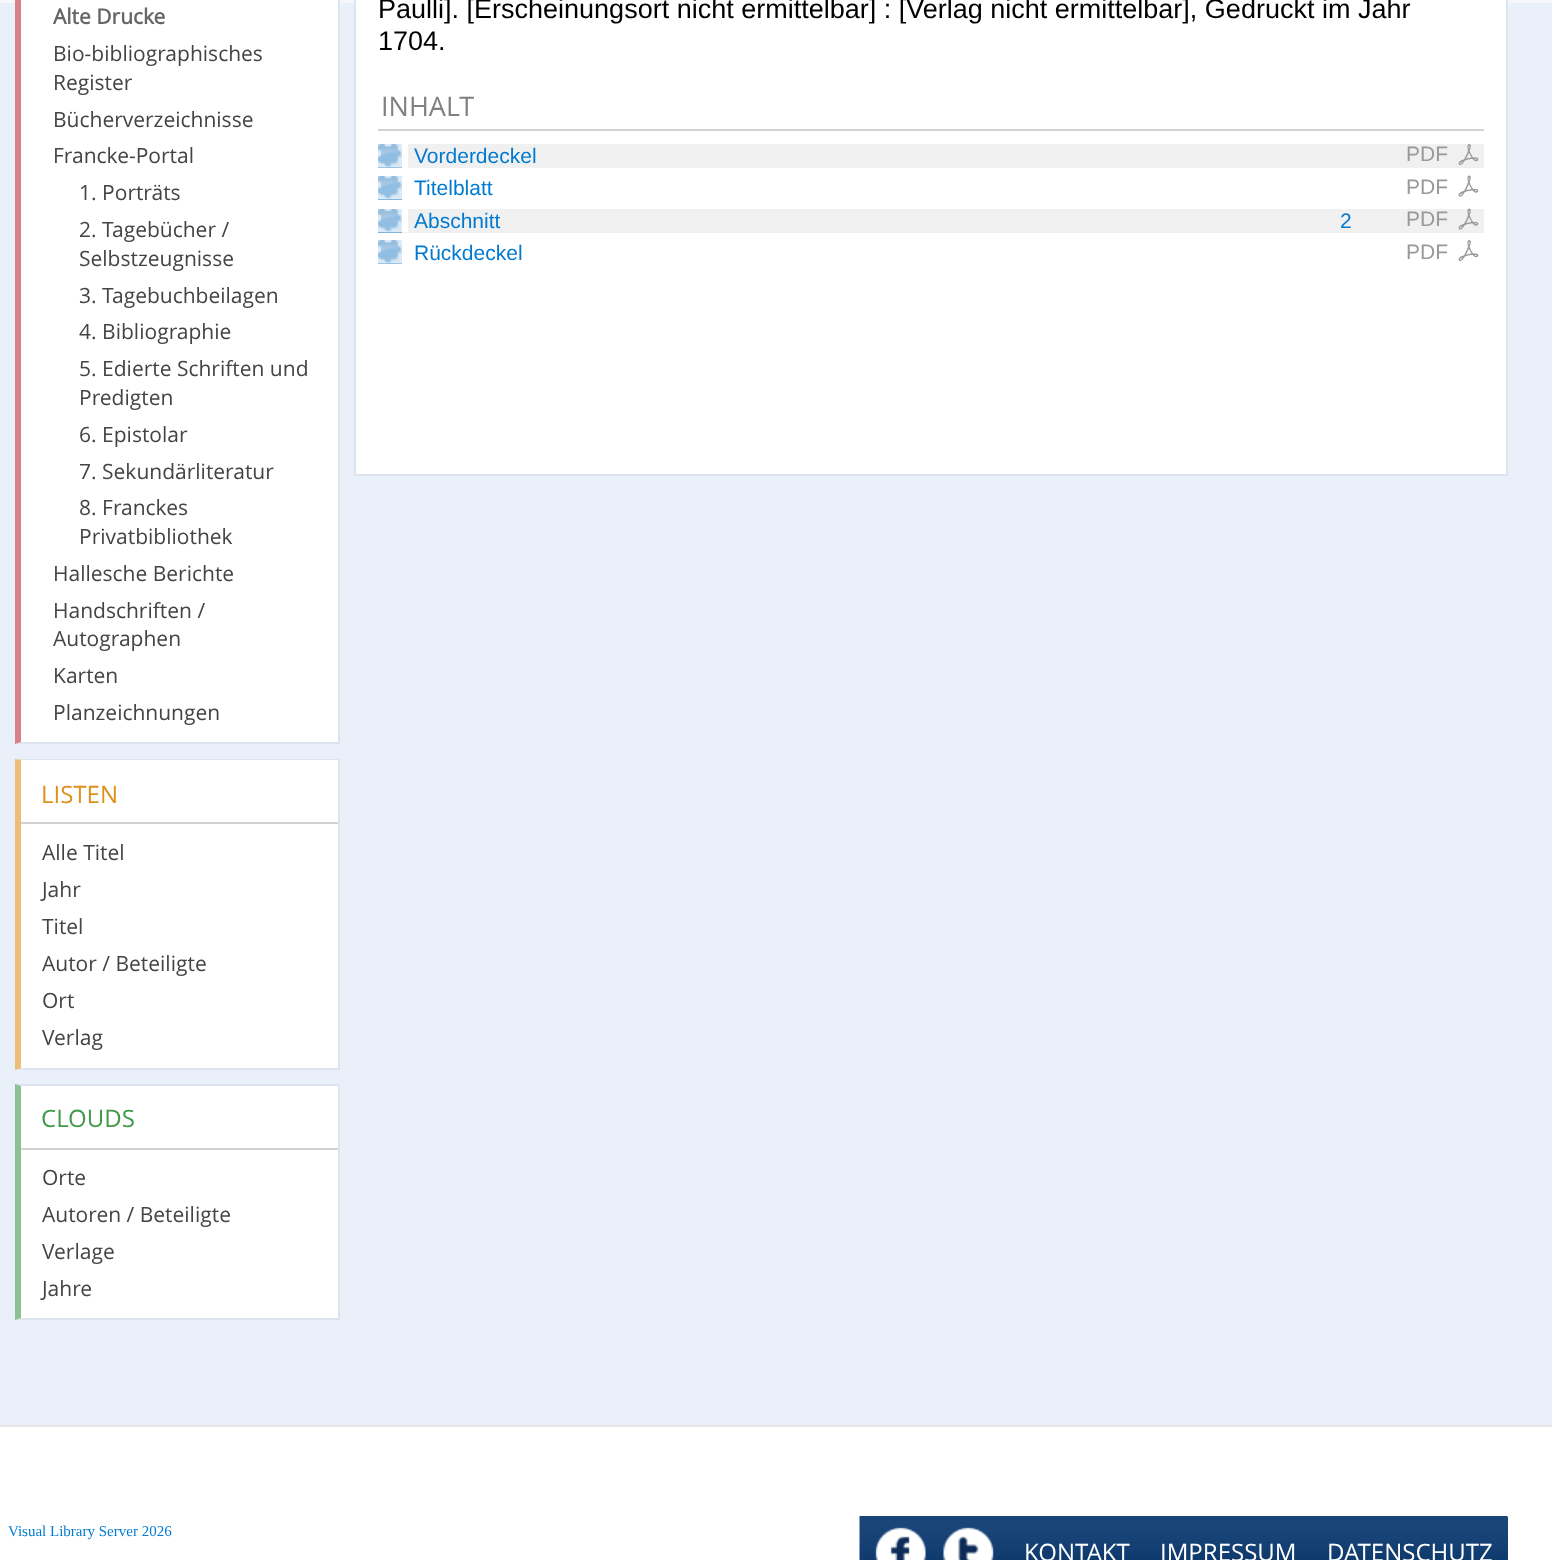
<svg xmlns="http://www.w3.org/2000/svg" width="1552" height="1560">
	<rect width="100%" height="100%" fill="#FFFFFF" />
	<rect x="0" y="3" width="1552" height="1422" fill="#E9F0FA" />
	<rect x="0" y="0" width="1552" height="3" fill="#F5F7FA" />
	<rect x="15" y="0" width="323" height="744" fill="#FFFFFF" />
	<rect x="338" y="0" width="2" height="744" fill="#DDE4ED" />
	<path d="M339 744H15L21 742H338Z" fill="#DDE4ED" />
	<path d="M15 744V-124L21-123V742Z" fill="#C12B3D" fill-opacity="0.6" />
	<text x="53" y="24" font-family="Open Sans" font-size="21" font-weight="700" fill="#666666">Alte Drucke</text>
	<g font-family="Open Sans" font-size="21" fill="#444444">
		<text x="53" y="61">Bio-bibliographisches</text>
		<text x="53" y="90">Register</text>
		<text x="53" y="127">Bücherverzeichnisse</text>
		<text x="53" y="163">Francke-Portal</text>
		<text x="79" y="200">1. Porträts</text>
		<text x="79" y="237">2. Tagebücher /</text>
		<text x="79" y="266">Selbstzeugnisse</text>
		<text x="79" y="303">3. Tagebuchbeilagen</text>
		<text x="79" y="339">4. Bibliographie</text>
		<text x="79" y="376">5. Edierte Schriften und</text>
		<text x="79" y="405">Predigten</text>
		<text x="79" y="442">6. Epistolar</text>
		<text x="79" y="479">7. Sekundärliteratur</text>
		<text x="79" y="515">8. Franckes</text>
		<text x="79" y="544">Privatbibliothek</text>
		<text x="53" y="581">Hallesche Berichte</text>
		<text x="53" y="618">Handschriften /</text>
		<text x="53" y="646">Autographen</text>
		<text x="53" y="683">Karten</text>
		<text x="53" y="720">Planzeichnungen</text>
	</g>
	<rect x="15" y="759" width="323" height="311" fill="#FFFFFF" />
	<path d="M15 759H339L338 760H21Z" fill="#DDE4ED" />
	<rect x="338" y="759" width="2" height="311" fill="#DDE4ED" />
	<path d="M339 1070H15L21 1068H338Z" fill="#DDE4ED" />
	<path d="M15 1070V759L21 760V1068Z" fill="#DE9119" fill-opacity="0.6" />
	<rect x="21" y="822" width="317" height="2" fill="#D3D1D1" />
	<text x="41" y="803" font-family="Open Sans" font-size="24" fill="#DE9119">LISTEN</text>
	<g font-family="Open Sans" font-size="21" fill="#444444">
		<text x="42" y="860">Alle Titel</text>
		<text x="42" y="897">Jahr</text>
		<text x="42" y="934">Titel</text>
		<text x="42" y="971">Autor / Beteiligte</text>
		<text x="42" y="1008">Ort</text>
		<text x="42" y="1045">Verlag</text>
	</g>
	<rect x="15" y="1085" width="323" height="235" fill="#FFFFFF" />
	<path d="M15 1084H339L338 1086H21Z" fill="#DDE4ED" />
	<rect x="338" y="1085" width="2" height="235" fill="#DDE4ED" />
	<path d="M339 1320H15L21 1318H338Z" fill="#DDE4ED" />
	<path d="M15 1320V1084L21 1086V1318Z" fill="#409A48" fill-opacity="0.6" />
	<rect x="21" y="1148" width="317" height="2" fill="#D3D1D1" />
	<text x="41" y="1127" font-family="Open Sans" font-size="24" fill="#409A48">CLOUDS</text>
	<g font-family="Open Sans" font-size="21" fill="#444444">
		<text x="42" y="1185">Orte</text>
		<text x="42" y="1222">Autoren / Beteiligte</text>
		<text x="42" y="1259">Verlage</text>
		<text x="42" y="1296">Jahre</text>
	</g>
	<rect x="355" y="-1" width="1152" height="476" fill="#FFFFFF" stroke="#DDE4ED" stroke-width="2" />
	<g font-family="Liberation Sans" font-size="27" fill="#000000">
		<text x="378" y="18">Paulli]. [Erscheinungsort nicht ermittelbar] : [Verlag nicht ermittelbar], Gedruckt im Jahr</text>
		<text x="378" y="50">1704.</text>
	</g>
	<rect x="378" y="129" width="1106" height="2" fill="#D3D1D1" />
	<text x="381" y="116" font-family="Open Sans" font-size="27" fill="#818182">INHALT</text>
	<rect x="408" y="144" width="1076" height="24" fill="#F0F0F0" />
	<rect x="378" y="144" width="24" height="24" fill="#86B7DF" />
	<image x="378" y="144" width="24" height="24" href="assets/img1.png" />
	<text x="414" y="163" font-family="Liberation Sans" font-size="21" fill="#007AD1">Vorderdeckel</text>
	<text x="1406" y="161" font-family="Liberation Sans" font-size="21" fill="#999999">PDF</text>
	<image x="1458" y="144" width="21" height="22" href="assets/img2.png" />
	<rect x="378" y="176" width="24" height="24" fill="#86B7DF" />
	<image x="378" y="176" width="24" height="23" href="assets/img3.png" />
	<text x="414" y="195" font-family="Liberation Sans" font-size="21" fill="#007AD1">Titelblatt</text>
	<text x="1406" y="194" font-family="Liberation Sans" font-size="21" fill="#999999">PDF</text>
	<image x="1458" y="175" width="21" height="22" href="assets/img4.png" />
	<rect x="402" y="209" width="1082" height="24" fill="#F0F0F0" />
	<rect x="378" y="232" width="24" height="1" fill="#81B2DA" />
	<rect x="402" y="209" width="6" height="23" fill="#FFFFFF" />
	<rect x="378" y="209" width="24" height="23" fill="#86B7DF" />
	<image x="378" y="209" width="24" height="23" href="assets/img5.png" />
	<g font-family="Liberation Sans" font-size="21" fill="#007AD1">
		<text x="414" y="228">Abschnitt</text>
		<text x="1340" y="228">2</text>
	</g>
	<text x="1406" y="226" font-family="Liberation Sans" font-size="21" fill="#999999">PDF</text>
	<image x="1458" y="208" width="21" height="22" href="assets/img6.png" />
	<rect x="378" y="240" width="24" height="24" fill="#86B7DF" />
	<image x="378" y="240" width="24" height="24" href="assets/img1.png" />
	<text x="414" y="260" font-family="Liberation Sans" font-size="21" fill="#007AD1">Rückdeckel</text>
	<text x="1406" y="259" font-family="Liberation Sans" font-size="21" fill="#999999">PDF</text>
	<image x="1458" y="240" width="21" height="22" href="assets/img7.png" />
	<rect x="0" y="1425" width="1552" height="2" fill="#E7E7E7" />
	<text x="8" y="1536" font-family="Liberation Serif" font-size="15" fill="#007AD1">Visual Library Server 2026</text>
	<rect x="1507" y="1517" width="1" height="43" fill="#154A75" />
	<image x="859" y="1516" width="649" height="44" href="assets/img8.png" />
	<image x="875" y="1527" width="51" height="33" href="assets/img9.png" />
	<image x="943" y="1527" width="51" height="33" href="assets/img10.png" />
	<g font-family="Open Sans" font-size="24" fill="#FFFFFF">
		<text x="1024" y="1561">KONTAKT</text>
		<text x="1160" y="1561">IMPRESSUM</text>
		<text x="1327" y="1561">DATENSCHUTZ</text>
	</g>
</svg>
